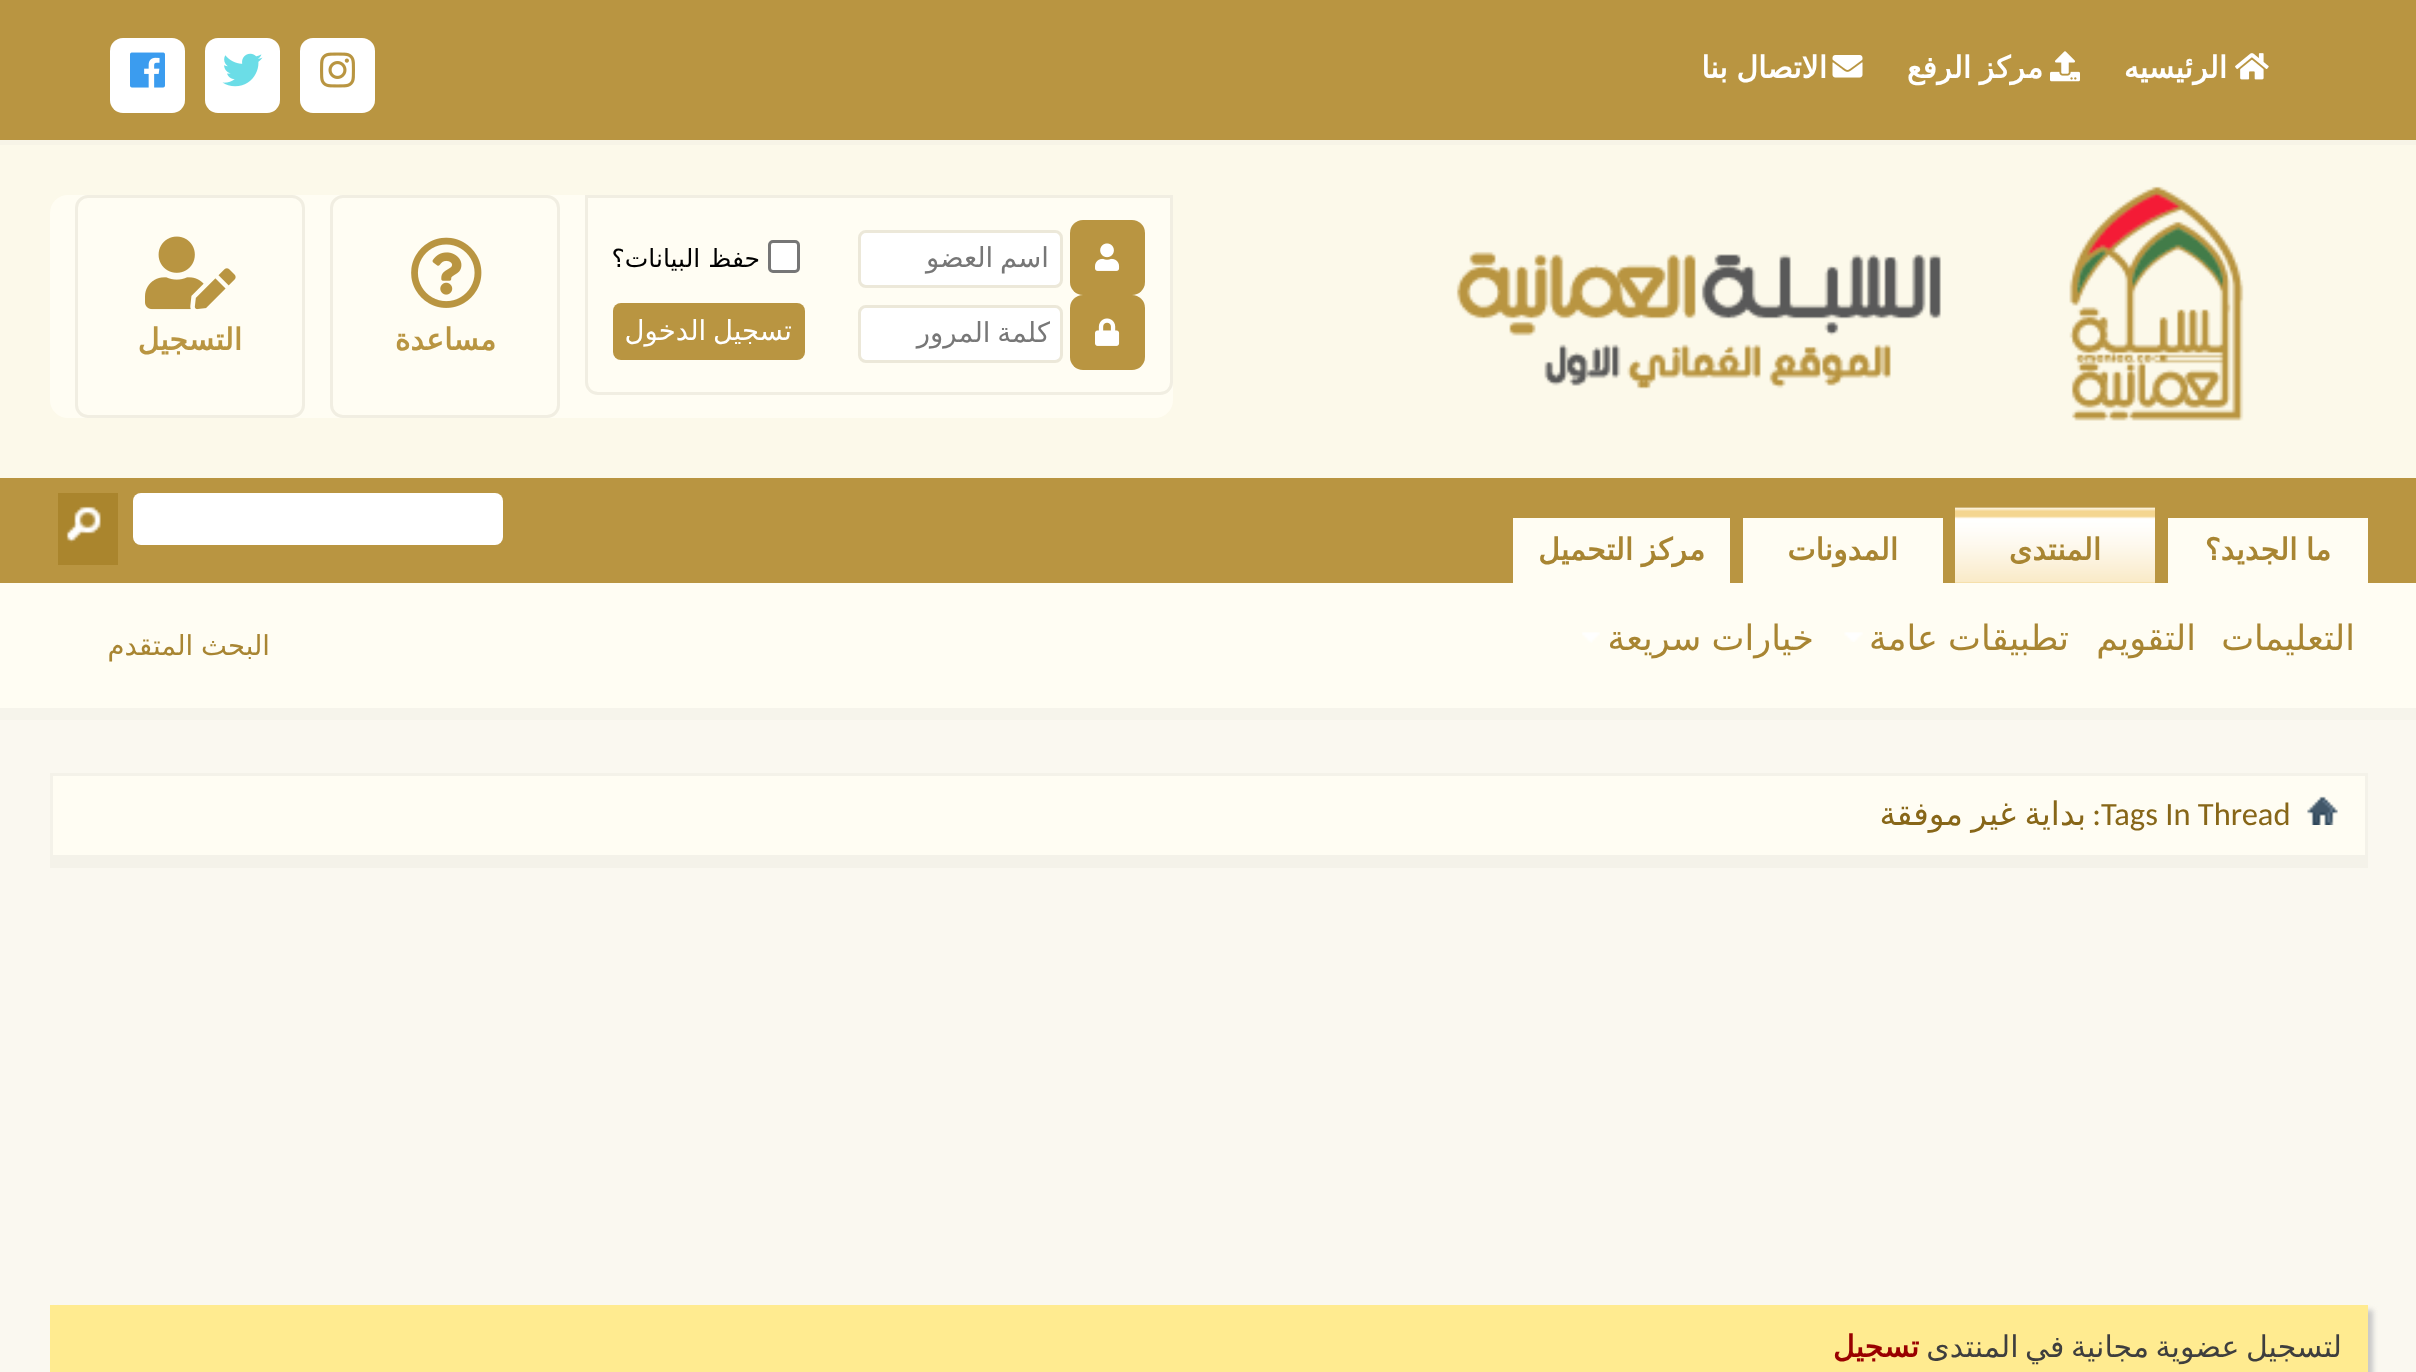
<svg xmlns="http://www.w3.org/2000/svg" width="2416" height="1372">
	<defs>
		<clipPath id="clip1"><rect x="870" y="318" width="180" height="32" /></clipPath>
	</defs>
	<rect width="100%" height="100%" fill="#FAF8F0" />
	<rect x="0" y="0" width="2416" height="140" fill="#B99541" />
	<rect x="0" y="140" width="2416" height="5" fill="#F7F4E7" />
	<image x="2235" y="53" width="34" height="27" href="assets/img1.png" />
	<text x="2227" y="78" font-family="DejaVu Sans" font-size="30" font-weight="700" direction="rtl" fill="#FFFFFF">الرئيسيه</text>
	<image x="2050" y="51" width="30" height="31" href="assets/img2.png" />
	<text x="2043" y="78" word-spacing="-1" font-family="DejaVu Sans" font-size="30" font-weight="700" direction="rtl" fill="#FFFFFF">مركز الرفع</text>
	<image x="1832" y="55" width="31" height="23" href="assets/img3.png" />
	<text x="1827" y="78" word-spacing="-1" font-family="DejaVu Sans" font-size="30" font-weight="700" direction="rtl" fill="#FFFFFF">الاتصال بنا</text>
	<rect x="300" y="38" width="75" height="75" rx="13" fill="#FFFFFF" />
	<image x="320" y="52" width="35" height="36" href="assets/img4.png" />
	<rect x="205" y="38" width="75" height="75" rx="13" fill="#FFFFFF" />
	<image x="222" y="53" width="41" height="34" href="assets/img5.png" />
	<rect x="110" y="38" width="75" height="75" rx="13" fill="#FFFFFF" />
	<image x="130" y="52" width="35" height="36" href="assets/img6.png" />
	<rect x="0" y="145" width="2416" height="333" fill="#FCF9EA" />
	<image x="1456" y="186" width="788" height="235" href="assets/img7.png" />
	<rect x="50" y="195" width="1123" height="223" rx="18" fill="#FFFDF3" />
	<path d="M586.5 196.5H1171.5V382C1171.5 388.5 1166.5 393.5 1160 393.5H598C591.5 393.5 586.5 388.5 586.5 382Z" fill="#FFFDF3" stroke="#F1EEE2" stroke-width="3" />
	<rect x="1070" y="220" width="75" height="75" rx="13" fill="#B99541" />
	<image x="1095" y="243" width="25" height="28" href="assets/img8.png" />
	<rect x="859.5" y="231.5" width="202" height="55" rx="6.5" fill="#FFFFFF" stroke="#ECE8D9" stroke-width="3" />
	<text x="1049" y="267" word-spacing="-2" font-family="DejaVu Sans" font-size="27.5" direction="rtl" fill="#777777">اسم العضو</text>
	<rect x="769.5" y="241.5" width="29" height="30" rx="3.5" fill="#FFFFFF" stroke="#767676" stroke-width="3" />
	<text x="760" y="267" font-family="DejaVu Sans" font-size="25" direction="rtl" fill="#000000">حفظ البيانات؟</text>
	<rect x="1070" y="295" width="75" height="75" rx="13" fill="#B99541" />
	<image x="1095" y="318" width="25" height="28" href="assets/img9.png" />
	<rect x="859.5" y="306.5" width="202" height="55" rx="6.5" fill="#FFFFFF" stroke="#ECE8D9" stroke-width="3" />
	<g clip-path="url(#clip1)">
		<text x="1050" y="342" word-spacing="-2" font-family="DejaVu Sans" font-size="27.5" direction="rtl" fill="#777777">كلمة المرور</text>
	</g>
	<rect x="613" y="303" width="192" height="57" rx="8" fill="#B99541" />
	<text x="792" y="340" word-spacing="-2" font-family="DejaVu Sans" font-size="27.5" direction="rtl" fill="#FFFFFF">تسجيل الدخول</text>
	<rect x="331.5" y="196.5" width="227" height="220" rx="11.5" fill="none" stroke="#F1EEE2" stroke-width="3" />
	<image x="411" y="237" width="71" height="71" href="assets/img10.png" />
	<text x="496" y="350" font-family="DejaVu Sans" font-size="30" font-weight="700" direction="rtl" fill="#B99541">مساعدة</text>
	<rect x="76.5" y="196.5" width="227" height="220" rx="11.5" fill="none" stroke="#F1EEE2" stroke-width="3" />
	<image x="145" y="236" width="91" height="74" href="assets/img11.png" />
	<text x="242" y="350" font-family="DejaVu Sans" font-size="30" font-weight="700" direction="rtl" fill="#B99541">التسجيل</text>
	<rect x="0" y="478" width="2416" height="105" fill="#B99541" />
	<rect x="2168" y="518" width="200" height="65" fill="#FFFDF3" />
	<text x="2331" y="560" word-spacing="-1" font-family="DejaVu Sans" font-size="30" font-weight="700" direction="rtl" fill="#A88532">ما الجديد؟</text>
	<rect x="1955" y="508" width="200" height="75" fill="#F4D691" />
	<image x="1955" y="507" width="200" height="76" href="assets/img12.png" />
	<text x="2101" y="560" font-family="DejaVu Sans" font-size="30" font-weight="700" direction="rtl" fill="#A88532">المنتدى</text>
	<rect x="1743" y="518" width="200" height="65" fill="#FFFDF3" />
	<text x="1898" y="560" font-family="DejaVu Sans" font-size="30" font-weight="700" direction="rtl" fill="#A88532">المدونات</text>
	<rect x="1513" y="518" width="217" height="65" fill="#FFFDF3" />
	<text x="1705" y="560" word-spacing="-1" font-family="DejaVu Sans" font-size="30" font-weight="700" direction="rtl" fill="#A88532">مركز التحميل</text>
	<rect x="0" y="583" width="2416" height="125" fill="#FFFDF3" />
	<g font-family="DejaVu Sans" font-size="35" direction="rtl" fill="#A88532">
		<text x="2355" y="650">التعليمات</text>
		<text x="2196" y="650">التقويم</text>
		<text x="2069" y="650" word-spacing="-1">تطبيقات عامة</text>
	</g>
	<image x="1844" y="632" width="19" height="10" href="assets/img13.png" />
	<text x="1814" y="650" word-spacing="-1" font-family="DejaVu Sans" font-size="35" direction="rtl" fill="#A88532">خيارات سريعة</text>
	<image x="1582" y="632" width="18" height="11" href="assets/img14.png" />
	<rect x="0" y="708" width="2416" height="12" fill="#F6F4EB" />
	<rect x="133" y="493" width="370" height="52" rx="8" fill="#FFFFFF" />
	<rect x="58" y="493" width="60" height="72" fill="#AA852D" />
	<image x="66" y="506" width="35" height="37" href="assets/img15.png" />
	<text x="270" y="655" word-spacing="-1" font-family="DejaVu Sans" font-size="27.5" direction="rtl" fill="#A88532">البحث المتقدم</text>
	<rect x="53" y="776" width="2312" height="79" fill="#FFFDF3" />
	<rect x="50" y="773" width="2318" height="3" fill="#F4F2E9" />
	<rect x="2365" y="773" width="3" height="82" fill="#F4F2E9" />
	<rect x="53" y="855" width="2315" height="13" fill="#F4F2E9" />
	<rect x="50" y="773" width="3" height="95" fill="#F4F2E9" />
	<image x="2307" y="796" width="31" height="29" href="assets/img16.png" />
	<text x="2101" y="825" font-family="Carlito" font-size="32.5" fill="#876618">Tags In Thread</text>
	<text x="2101" y="825" font-family="Carlito" font-size="32.5" direction="rtl" fill="#876618">:</text>
	<text x="2086" y="825" word-spacing="-2" font-family="DejaVu Sans" font-size="32.5" direction="rtl" fill="#876618">بداية غير موفقة</text>
	<rect x="55" y="1310" width="2318" height="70" fill="#C8C8C8" filter="blur(2.5px)" />
	<rect x="50" y="1305" width="2318" height="67" fill="#FFEB90" />
	<text x="2342" y="1357" word-spacing="-3" font-family="DejaVu Sans" font-size="30" direction="rtl" fill="#3E3E3E">لتسجيل عضوية مجانية في المنتدى</text>
	<text x="1919" y="1357" font-family="DejaVu Sans" font-size="30" font-weight="700" direction="rtl" fill="#990000">تسجيل</text>
</svg>
